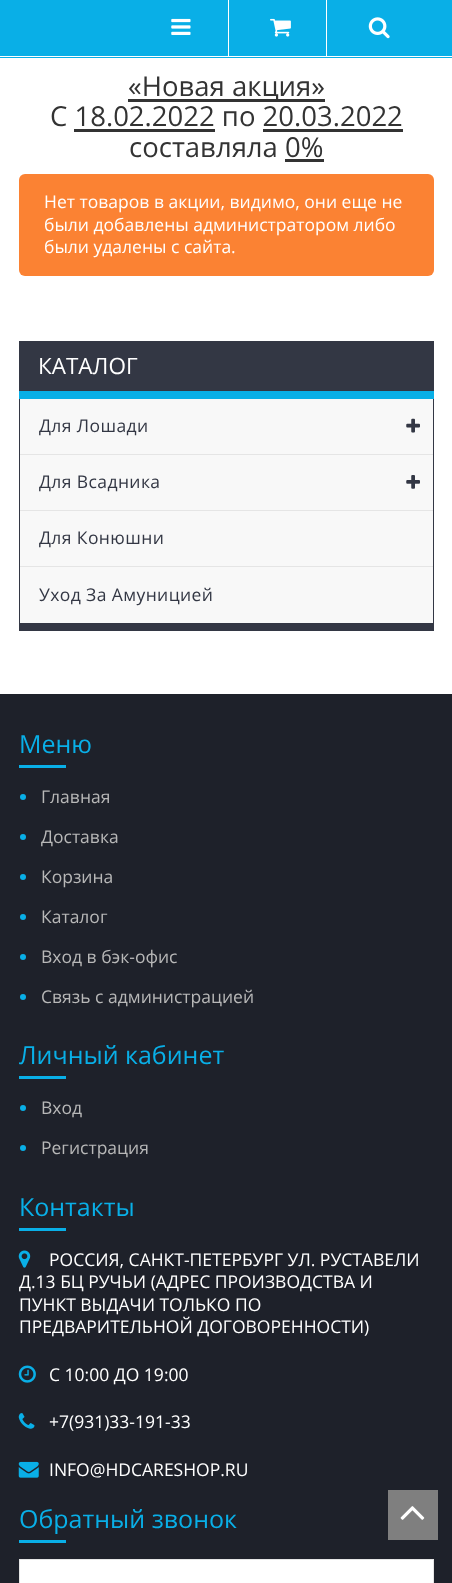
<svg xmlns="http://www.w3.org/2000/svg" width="452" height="1583">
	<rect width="100%" height="100%" fill="#FFFFFF" />
	<rect x="0" y="0" width="452" height="58" fill="#09AFE7" />
	<rect x="0" y="56" width="452" height="1" fill="#FFFFFF" />
	<rect x="228" y="0" width="1" height="56" fill="#FFFFFF" />
	<image x="171" y="18" width="20" height="17" href="assets/img1.png" />
	<rect x="326" y="0" width="1" height="56" fill="#FFFFFF" />
	<image x="270" y="18" width="21" height="19" href="assets/img2.png" />
	<image x="368" y="17" width="22" height="22" href="assets/img3.png" />
	<rect x="128" y="99" width="197" height="3" fill="#333333" />
	<g font-family="Open Sans" font-size="27.5" fill="#333333">
		<text x="128" y="96">«Новая акция»</text>
		<text x="50" y="126">C 18.02.2022 по 20.03.2022</text>
	</g>
	<rect x="74" y="129" width="141" height="3" fill="#333333" />
	<rect x="263" y="129" width="140" height="3" fill="#333333" />
	<text x="129" y="157" font-family="Open Sans" font-size="27.5" fill="#333333">составляла 0%</text>
	<rect x="285" y="159" width="39" height="3" fill="#333333" />
	<rect x="19" y="174" width="415" height="102" rx="6" fill="#FB8233" />
	<g font-family="Open Sans" font-size="17.5" fill="#FFFFFF">
		<text x="44" y="208">Нет товаров в акции, видимо, они еще не</text>
		<text x="44" y="231">были добавлены администратором либо</text>
		<text x="44" y="253">были удалены с сайта.</text>
	</g>
	<rect x="19" y="341" width="415" height="50" fill="#333744" />
	<rect x="19" y="391" width="415" height="8" fill="#09AFE7" />
	<text x="38" y="374" font-family="Open Sans" font-size="22.5" fill="#FFFFFF">КАТАЛОГ</text>
	<rect x="433" y="399" width="1" height="232" fill="#333744" />
	<rect x="19" y="623" width="415" height="8" fill="#333744" />
	<rect x="19" y="399" width="1" height="232" fill="#333744" />
	<rect x="20" y="399" width="413" height="55" fill="#F8F8F8" />
	<rect x="20" y="454" width="413" height="1" fill="#E5E5E5" />
	<text x="39" y="432" font-family="Open Sans" font-size="17.5" letter-spacing="0.4" fill="#333744">Для Лошади</text>
	<image x="406" y="418" width="14" height="15" href="assets/img4.png" />
	<rect x="20" y="455" width="413" height="55" fill="#F8F8F8" />
	<rect x="20" y="510" width="413" height="1" fill="#E5E5E5" />
	<text x="39" y="488" font-family="Open Sans" font-size="17.5" letter-spacing="0.4" fill="#333744">Для Всадника</text>
	<image x="406" y="475" width="14" height="14" href="assets/img5.png" />
	<rect x="20" y="511" width="413" height="112" fill="#F8F8F8" />
	<rect x="20" y="566" width="413" height="1" fill="#E5E5E5" />
	<g font-family="Open Sans" font-size="17.5" letter-spacing="0.4" fill="#333744">
		<text x="39" y="544">Для Конюшни</text>
		<text x="39" y="601">Уход За Амуницией</text>
	</g>
	<rect x="0" y="694" width="452" height="889" fill="#1E212A" />
	<text x="19" y="753" font-family="Open Sans" font-size="25" fill="#09AFE7">Меню</text>
	<rect x="19" y="765" width="47" height="3" fill="#09AFE7" />
	<circle cx="23" cy="797" r="3" fill="#09AFE7" />
	<text x="41" y="803" font-family="Open Sans" font-size="17.5" fill="#B8B8B8">Главная</text>
	<circle cx="23" cy="837" r="3" fill="#09AFE7" />
	<text x="41" y="843" font-family="Open Sans" font-size="17.5" fill="#B8B8B8">Доставка</text>
	<circle cx="23" cy="877" r="3" fill="#09AFE7" />
	<text x="41" y="883" font-family="Open Sans" font-size="17.5" fill="#B8B8B8">Корзина</text>
	<circle cx="23" cy="917" r="3" fill="#09AFE7" />
	<text x="41" y="923" font-family="Open Sans" font-size="17.5" fill="#B8B8B8">Каталог</text>
	<circle cx="23" cy="957" r="3" fill="#09AFE7" />
	<text x="41" y="963" font-family="Open Sans" font-size="17.5" fill="#B8B8B8">Вход в бэк-офис</text>
	<circle cx="23" cy="997" r="3" fill="#09AFE7" />
	<text x="41" y="1003" font-family="Open Sans" font-size="17.5" fill="#B8B8B8">Связь с администрацией</text>
	<text x="19" y="1064" font-family="Open Sans" font-size="25" fill="#09AFE7">Личный кабинет</text>
	<rect x="19" y="1076" width="47" height="3" fill="#09AFE7" />
	<circle cx="23" cy="1108" r="3" fill="#09AFE7" />
	<text x="41" y="1114" font-family="Open Sans" font-size="17.5" fill="#B8B8B8">Вход</text>
	<circle cx="23" cy="1148" r="3" fill="#09AFE7" />
	<text x="41" y="1154" font-family="Open Sans" font-size="17.5" fill="#B8B8B8">Регистрация</text>
	<text x="19" y="1216" font-family="Open Sans" font-size="25" fill="#09AFE7">Контакты</text>
	<rect x="19" y="1228" width="47" height="3" fill="#09AFE7" />
	<image x="18" y="1250" width="13" height="18" href="assets/img6.png" />
	<g font-family="Open Sans" font-size="17.5" fill="#FFFFFF">
		<text x="49" y="1266">РОССИЯ, САНКТ-ПЕТЕРБУРГ УЛ. РУСТАВЕЛИ</text>
		<text x="19" y="1288">Д.13 БЦ РУЧЬИ (АДРЕС ПРОИЗВОДСТВА И</text>
		<text x="19" y="1311">ПУНКТ ВЫДАЧИ ТОЛЬКО ПО</text>
		<text x="19" y="1333">ПРЕДВАРИТЕЛЬНОЙ ДОГОВОРЕННОСТИ)</text>
	</g>
	<image x="18" y="1365" width="18" height="18" href="assets/img7.png" />
	<text x="49" y="1381" font-family="Open Sans" font-size="17.5" fill="#FFFFFF">С 10:00 ДО 19:00</text>
	<image x="18" y="1413" width="17" height="16" href="assets/img8.png" />
	<text x="49" y="1428" font-family="Open Sans" font-size="17.5" fill="#FFFFFF">+7(931)33-191-33</text>
	<image x="18" y="1461" width="21" height="17" href="assets/img9.png" />
	<text x="49" y="1476" font-family="Open Sans" font-size="17.5" fill="#FFFFFF">INFO@HDCARESHOP.RU</text>
	<text x="19" y="1528" font-family="Open Sans" font-size="25" fill="#09AFE7">Обратный звонок</text>
	<rect x="19" y="1540" width="47" height="3" fill="#09AFE7" />
	<rect x="19.5" y="1559.5" width="414" height="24" fill="#FFFFFF" stroke="#E5E5E5" />
	<rect x="388" y="1490" width="50" height="50" fill="#7F7F7F" />
	<image x="400" y="1506" width="25" height="14" href="assets/img10.png" />
</svg>
